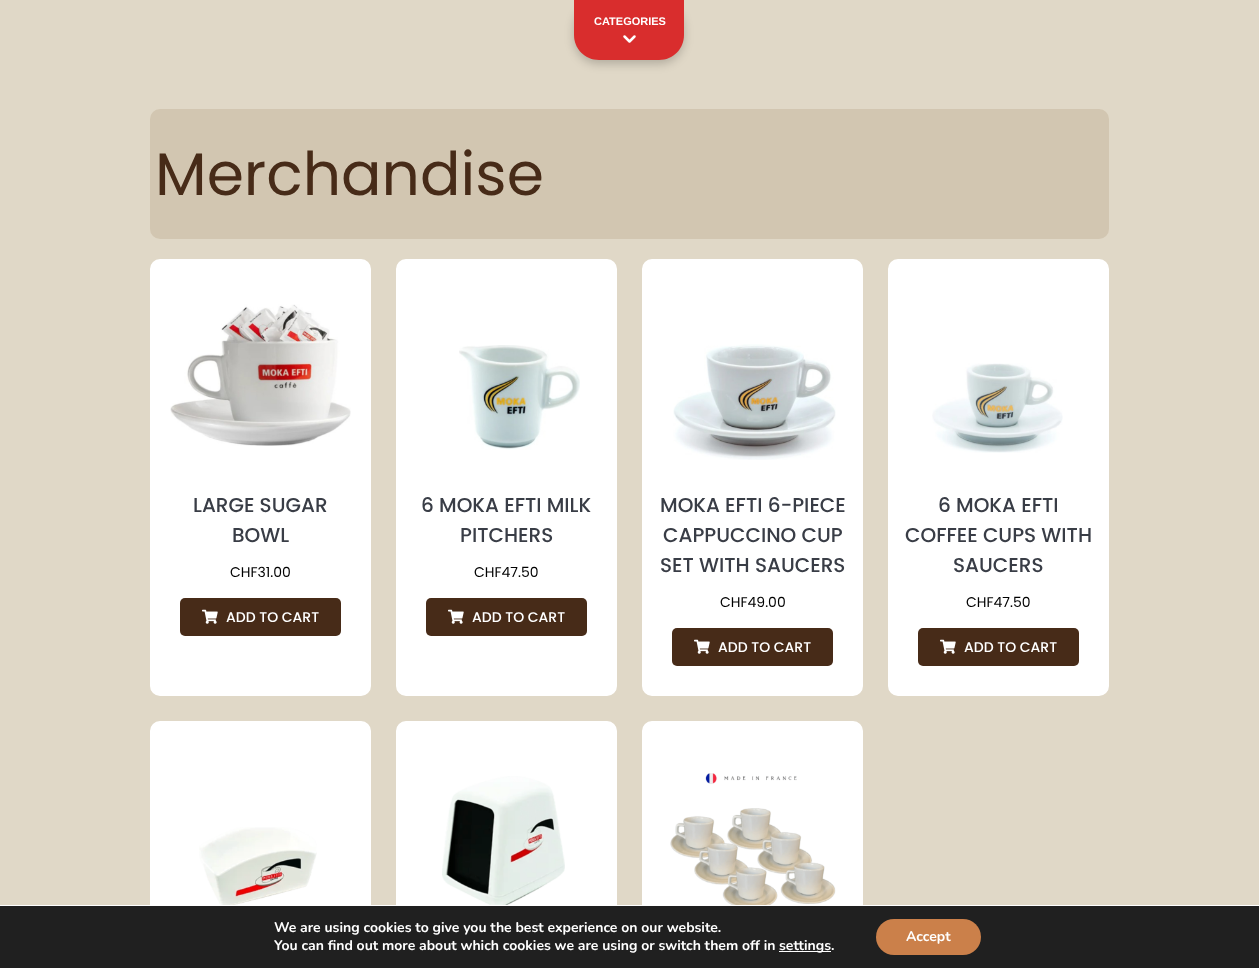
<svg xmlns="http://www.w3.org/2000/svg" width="1259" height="968">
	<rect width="100%" height="100%" fill="#E0D8C7" />
	<rect x="574" y="4" width="110" height="60" rx="25" fill="#000000" fill-opacity="0.2" filter="blur(5px)" />
	<path d="M574 0H684V35C684 49 673 60 659 60H599C585 60 574 49 574 35Z" fill="#D92D2D" />
	<text x="594" y="25" font-family="Liberation Sans" font-size="11" font-weight="700" fill="#FFFFFF">CATEGORIES</text>
	<path d="M624.5 36.5L629.5 41.5L634.5 36.5" fill="none" stroke="#FFFFFF" stroke-width="2.5" stroke-linecap="round" stroke-linejoin="round" />
	<rect x="150" y="109" width="959" height="130" rx="10" fill="#D2C6B1" />
	<text x="155" y="195" font-family="Poppins" font-size="60" fill="#472B18">Merchandise</text>
	<rect x="157.5" y="266.5" width="206" height="422" rx="2.5" fill="#FFFFFF" stroke="#FFFFFF" stroke-width="15" />
	<image x="170" y="304" width="181" height="142" href="assets/img1.png" />
	<g font-family="Poppins" font-size="20" font-weight="500" fill="#393D46">
		<text x="193" y="512">LARGE SUGAR</text>
		<text x="232" y="542">BOWL</text>
	</g>
	<text x="230" y="577" font-family="Poppins" font-size="14" fill="#000000">CHF31.00</text>
	<rect x="180" y="598" width="161" height="38" rx="5" fill="#472B18" />
	<image x="202" y="609" width="16" height="15" href="assets/img2.png" />
	<text x="226" y="622" font-family="Poppins" font-size="14" font-weight="500" fill="#FFFFFF">ADD TO CART</text>
	<rect x="403.5" y="266.5" width="206" height="422" rx="2.5" fill="#FFFFFF" stroke="#FFFFFF" stroke-width="15" />
	<image x="459" y="345" width="121" height="105" href="assets/img3.png" />
	<g font-family="Poppins" font-size="20" font-weight="500" fill="#393D46">
		<text x="421" y="512">6 MOKA EFTI MILK</text>
		<text x="460" y="542">PITCHERS</text>
	</g>
	<text x="474" y="577" font-family="Poppins" font-size="14" fill="#000000">CHF47.50</text>
	<rect x="426" y="598" width="161" height="38" rx="5" fill="#472B18" />
	<image x="448" y="609" width="16" height="15" href="assets/img2.png" />
	<text x="472" y="622" font-family="Poppins" font-size="14" font-weight="500" fill="#FFFFFF">ADD TO CART</text>
	<rect x="649.5" y="266.5" width="206" height="422" rx="2.5" fill="#FFFFFF" stroke="#FFFFFF" stroke-width="15" />
	<image x="673" y="344" width="163" height="116" href="assets/img4.png" />
	<g font-family="Poppins" font-size="20" font-weight="500" fill="#393D46">
		<text x="660" y="512">MOKA EFTI 6-PIECE</text>
		<text x="663" y="542">CAPPUCCINO CUP</text>
		<text x="660" y="572">SET WITH SAUCERS</text>
	</g>
	<text x="720" y="607" font-family="Poppins" font-size="14" fill="#000000">CHF49.00</text>
	<rect x="672" y="628" width="161" height="38" rx="5" fill="#472B18" />
	<image x="694" y="639" width="16" height="15" href="assets/img2.png" />
	<text x="718" y="652" font-family="Poppins" font-size="14" font-weight="500" fill="#FFFFFF">ADD TO CART</text>
	<rect x="895.5" y="266.5" width="206" height="422" rx="2.5" fill="#FFFFFF" stroke="#FFFFFF" stroke-width="15" />
	<image x="932" y="363" width="131" height="90" href="assets/img5.png" />
	<g font-family="Poppins" font-size="20" font-weight="500" fill="#393D46">
		<text x="938" y="512">6 MOKA EFTI</text>
		<text x="905" y="542">COFFEE CUPS WITH</text>
		<text x="953" y="572">SAUCERS</text>
	</g>
	<text x="966" y="607" font-family="Poppins" font-size="14" fill="#000000">CHF47.50</text>
	<rect x="918" y="628" width="161" height="38" rx="5" fill="#472B18" />
	<image x="940" y="639" width="16" height="15" href="assets/img2.png" />
	<text x="964" y="652" font-family="Poppins" font-size="14" font-weight="500" fill="#FFFFFF">ADD TO CART</text>
	<rect x="157.5" y="728.5" width="206" height="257" rx="2.5" fill="#FFFFFF" stroke="#FFFFFF" stroke-width="15" />
	<image x="199" y="827" width="118" height="78" href="assets/img6.png" />
	<rect x="403.5" y="728.5" width="206" height="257" rx="2.5" fill="#FFFFFF" stroke="#FFFFFF" stroke-width="15" />
	<image x="442" y="776" width="123" height="129" href="assets/img7.png" />
	<rect x="649.5" y="728.5" width="206" height="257" rx="2.5" fill="#FFFFFF" stroke="#FFFFFF" stroke-width="15" />
	<image x="670" y="773" width="166" height="132" href="assets/img8.png" />
	<rect x="0" y="906" width="1259" height="62" fill="#202020" />
	<rect x="0" y="905" width="1259" height="1" fill="#FFFFFF" />
	<g font-family="Nunito" font-size="14" font-weight="700" fill="#FFFFFF">
		<text x="274" y="932">We are using cookies to give you the best experience on our website.</text>
		<text x="274" y="950">You can find out more about which cookies we are using or switch them off in</text>
	</g>
	<rect x="779" y="951" width="52" height="1" fill="#FFFFFF" />
	<text x="779" y="950" font-family="Nunito" font-size="14" font-weight="700" fill="#FFFFFF">settings.</text>
	<rect x="876" y="919" width="105" height="36" rx="18" fill="#CB804A" />
	<text x="906" y="941" font-family="Nunito" font-size="14" font-weight="700" fill="#FFFFFF">Accept</text>
</svg>
